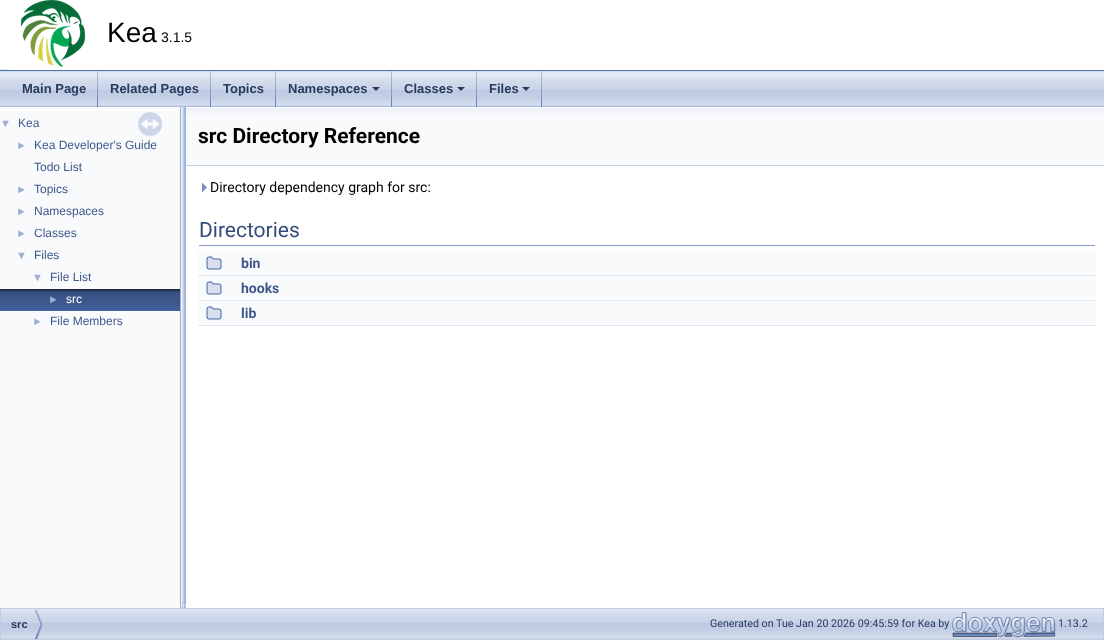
<svg xmlns="http://www.w3.org/2000/svg" width="1104" height="640">
	<rect width="100%" height="100%" fill="#FFFFFF" />
	<rect x="0" y="70" width="1104" height="1" fill="#5373B4" />
	<image x="0" y="0" width="86" height="70" href="assets/img1.png" />
	<text x="107" y="42" font-family="Liberation Sans" font-size="28" fill="#000000">Kea</text>
	<text x="161" y="42" font-family="Liberation Sans" font-size="14" fill="#000000">3.1.5</text>
	<image x="0" y="71" width="1104" height="36" href="assets/img2.png" />
	<image x="97" y="71" width="1" height="36" href="assets/img3.png" />
	<text x="22" y="93" font-family="Liberation Sans" font-size="13" font-weight="700" fill="#283A5D">Main Page</text>
	<image x="210" y="71" width="1" height="36" href="assets/img3.png" />
	<text x="110" y="93" font-family="Liberation Sans" font-size="13" font-weight="700" fill="#283A5D">Related Pages</text>
	<image x="275" y="71" width="1" height="36" href="assets/img3.png" />
	<text x="223" y="93" font-family="Liberation Sans" font-size="13" font-weight="700" fill="#283A5D">Topics</text>
	<image x="391" y="71" width="1" height="36" href="assets/img3.png" />
	<text x="288" y="93" font-family="Liberation Sans" font-size="13" font-weight="700" fill="#283A5D">Namespaces</text>
	<path d="M372 87H380L376 91Z" fill="#283A5D" />
	<image x="476" y="71" width="1" height="36" href="assets/img3.png" />
	<text x="404" y="93" font-family="Liberation Sans" font-size="13" font-weight="700" fill="#283A5D">Classes</text>
	<path d="M457 87H465L461 91Z" fill="#283A5D" />
	<image x="541" y="71" width="1" height="36" href="assets/img3.png" />
	<text x="489" y="93" font-family="Liberation Sans" font-size="13" font-weight="700" fill="#283A5D">Files</text>
	<path d="M522 87H530L526 91Z" fill="#283A5D" />
	<rect x="0" y="107" width="180" height="501" fill="#F9FAFC" />
	<image x="138" y="112" width="24" height="24" href="assets/img4.png" />
	<text x="0" y="127" font-family="Liberation Sans" font-size="11" fill="#9CAFD4">▼</text>
	<text x="18" y="127" font-family="Liberation Sans" font-size="12" fill="#3D578C">Kea</text>
	<text x="16" y="149" font-family="Liberation Sans" font-size="11" fill="#9CAFD4">►</text>
	<g font-family="Liberation Sans" font-size="12" fill="#3D578C">
		<text x="34" y="149">Kea Developer's Guide</text>
		<text x="34" y="171">Todo List</text>
	</g>
	<text x="16" y="193" font-family="Liberation Sans" font-size="11" fill="#9CAFD4">►</text>
	<text x="34" y="193" font-family="Liberation Sans" font-size="12" fill="#3D578C">Topics</text>
	<text x="16" y="215" font-family="Liberation Sans" font-size="11" fill="#9CAFD4">►</text>
	<text x="34" y="215" font-family="Liberation Sans" font-size="12" fill="#3D578C">Namespaces</text>
	<text x="16" y="237" font-family="Liberation Sans" font-size="11" fill="#9CAFD4">►</text>
	<text x="34" y="237" font-family="Liberation Sans" font-size="12" fill="#3D578C">Classes</text>
	<text x="16" y="259" font-family="Liberation Sans" font-size="11" fill="#9CAFD4">▼</text>
	<text x="34" y="259" font-family="Liberation Sans" font-size="12" fill="#3D578C">Files</text>
	<text x="32" y="281" font-family="Liberation Sans" font-size="11" fill="#9CAFD4">▼</text>
	<text x="50" y="281" font-family="Liberation Sans" font-size="12" fill="#3D578C">File List</text>
	<image x="0" y="289" width="180" height="22" href="assets/img5.png" />
	<text x="48" y="303" font-family="Liberation Sans" font-size="11" fill="#9CAFD4">►</text>
	<text x="66" y="303" font-family="Liberation Sans" font-size="12" fill="#FFFFFF">src</text>
	<text x="32" y="325" font-family="Liberation Sans" font-size="11" fill="#9CAFD4">►</text>
	<text x="50" y="325" font-family="Liberation Sans" font-size="12" fill="#3D578C">File Members</text>
	<image x="180" y="107" width="6" height="501" href="assets/img6.png" />
	<rect x="186" y="115" width="918" height="50" fill="#F9FAFC" />
	<image x="186" y="107" width="918" height="8" href="assets/img7.png" />
	<rect x="186" y="165" width="918" height="1" fill="#C4CFE5" />
	<text x="198" y="143" font-family="Roboto" font-size="21" font-weight="700" fill="#000000">src Directory Reference</text>
	<image x="202" y="183" width="5" height="9" href="assets/img8.png" />
	<text x="210" y="192" font-family="Roboto" font-size="14" fill="#000000">Directory dependency graph for src:</text>
	<rect x="199" y="245" width="896" height="1" fill="#879ECB" />
	<text x="199" y="237" font-family="Roboto" font-size="21" fill="#354C7B">Directories</text>
	<rect x="198" y="251" width="898" height="23" fill="#F9FAFC" />
	<image x="206" y="256" width="16" height="14" href="assets/img9.png" />
	<text x="241" y="268" font-family="Roboto" font-size="14" font-weight="700" fill="#3D578C">bin</text>
	<rect x="198" y="275" width="898" height="1" fill="#DEE4F0" />
	<rect x="198" y="276" width="898" height="23" fill="#F9FAFC" />
	<image x="206" y="281" width="16" height="14" href="assets/img9.png" />
	<text x="241" y="293" font-family="Roboto" font-size="14" font-weight="700" fill="#3D578C">hooks</text>
	<rect x="198" y="300" width="898" height="1" fill="#DEE4F0" />
	<rect x="198" y="301" width="898" height="23" fill="#F9FAFC" />
	<image x="206" y="306" width="16" height="14" href="assets/img9.png" />
	<text x="241" y="318" font-family="Roboto" font-size="14" font-weight="700" fill="#3D578C">lib</text>
	<rect x="198" y="325" width="898" height="1" fill="#DEE4F0" />
	<image x="1" y="609" width="1102" height="30" href="assets/img10.png" />
	<rect x="0.5" y="608.5" width="1103" height="31" fill="none" stroke="#C2CDE4" />
	<image x="35" y="610" width="8" height="29" href="assets/img11.png" />
	<text x="11" y="628" font-family="Liberation Sans" font-size="11" font-weight="700" fill="#283A5D">src</text>
	<text x="710" y="627" font-family="Roboto" font-size="10.7" fill="#283A5D">Generated on Tue Jan 20 2026 09:45:59 for Kea by</text>
	<image x="952" y="612" width="104" height="26" href="assets/img12.png" />
	<text x="1058" y="627" font-family="Roboto" font-size="10.7" fill="#283A5D">1.13.2</text>
</svg>
